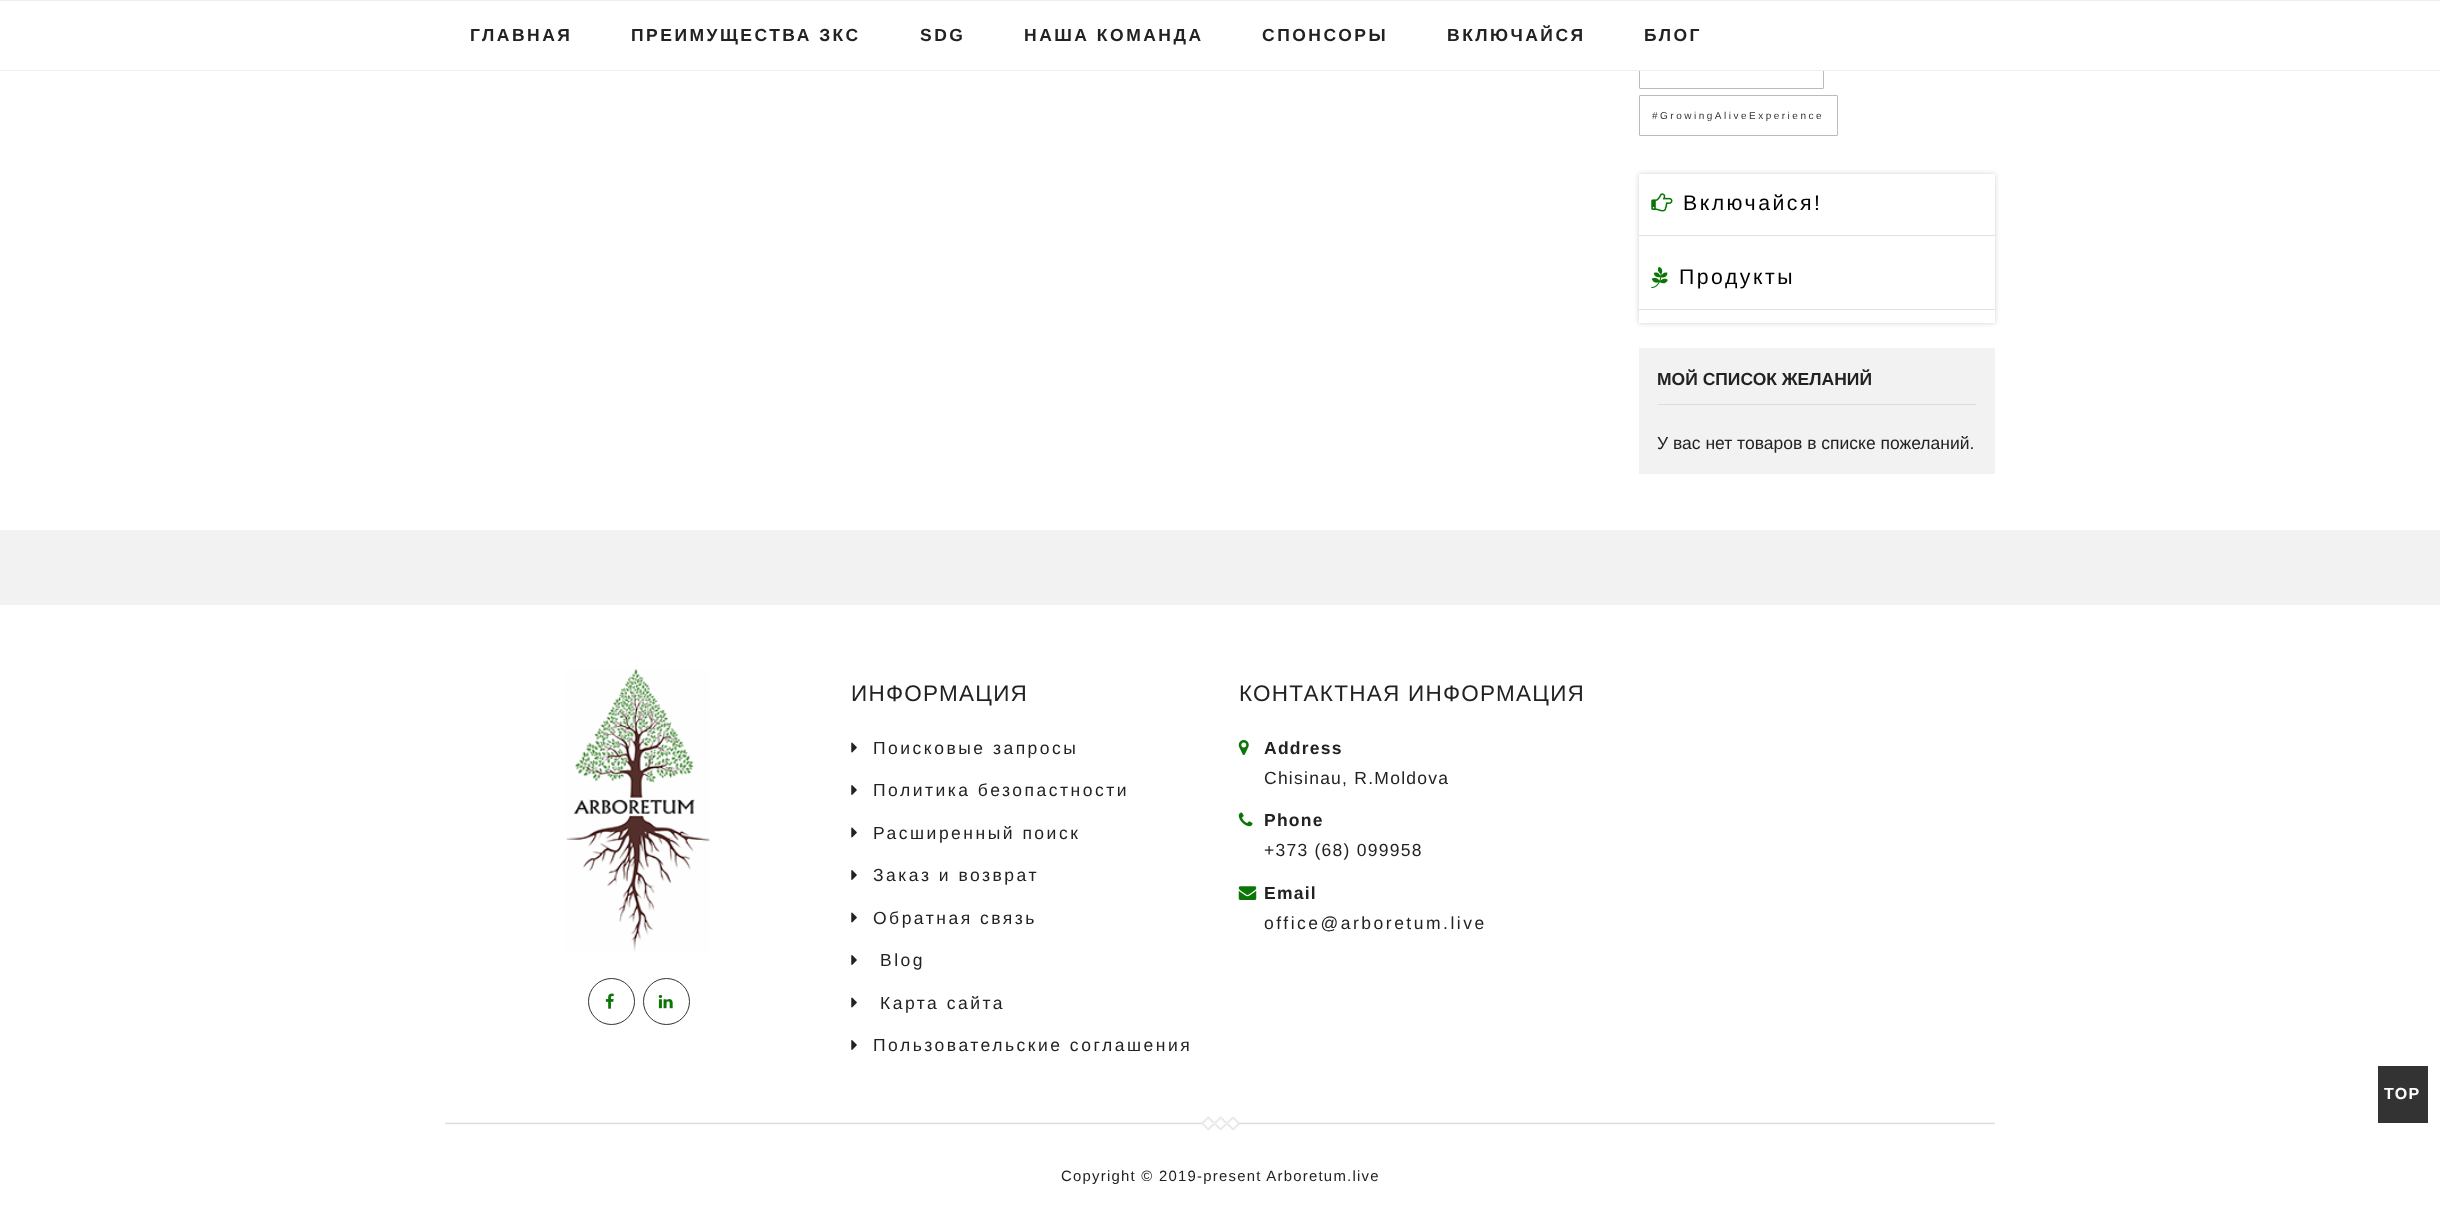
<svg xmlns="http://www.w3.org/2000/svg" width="2440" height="1224">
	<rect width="100%" height="100%" fill="#FFFFFF" />
	<rect x="1639.5" y="46.5" width="184" height="42" rx="0.5" fill="none" stroke="#BBBBBB" />
	<rect x="1639" y="46" width="185" height="24" fill="#FFFFFF" />
	<rect x="0" y="0" width="2440" height="1" fill="#EEEEEE" />
	<rect x="0" y="70" width="2440" height="1" fill="#EEEEEE" />
	<g font-family="Liberation Sans" font-size="17.5" font-weight="700" letter-spacing="2.5" fill="#222222">
		<text x="470" y="41">ГЛАВНАЯ</text>
		<text x="631" y="41">ПРЕИМУЩЕСТВА ЗКС</text>
		<text x="920" y="41">SDG</text>
		<text x="1024" y="41">НАША КОМАНДА</text>
		<text x="1262" y="41">СПОНСОРЫ</text>
		<text x="1447" y="41">ВКЛЮЧАЙСЯ</text>
		<text x="1644" y="41">БЛОГ</text>
	</g>
	<rect x="1639.5" y="95.5" width="198" height="40" rx="0.5" fill="none" stroke="#BBBBBB" />
	<text x="1652" y="119" font-family="Liberation Sans" font-size="10" letter-spacing="2.5" fill="#333333">#GrowingAliveExperience</text>
	<rect x="1639" y="174" width="356" height="149" fill="#000000" fill-opacity="0.19" filter="blur(2.5px)" />
	<rect x="1639" y="174" width="356" height="149" fill="#FFFFFF" />
	<rect x="1639" y="235" width="356" height="1" fill="#E0E0E0" />
	<image x="1651" y="193" width="22" height="19" href="assets/img1.png" />
	<text x="1683" y="210" font-family="Liberation Sans" font-size="21.25" letter-spacing="2.5" fill="#000000">Включайся!</text>
	<rect x="1639" y="309" width="356" height="1" fill="#E0E0E0" />
	<image x="1651" y="266" width="17" height="22" href="assets/img2.png" />
	<text x="1679" y="284" font-family="Liberation Sans" font-size="21.25" letter-spacing="2.5" fill="#000000">Продукты</text>
	<rect x="1639" y="348" width="356" height="126" fill="#F2F2F2" />
	<rect x="1658" y="404" width="318" height="1" fill="#DDDDDD" />
	<text x="1657" y="385" font-family="Liberation Sans" font-size="17.5" font-weight="700" fill="#222222">МОЙ СПИСОК ЖЕЛАНИЙ</text>
	<text x="1657" y="449" font-family="Liberation Sans" font-size="17.5" fill="#222222">У вас нет товаров в списке пожеланий.</text>
	<rect x="0" y="530" width="2440" height="75" fill="#F2F2F2" />
	<image x="566" y="668" width="144" height="284" href="assets/img3.png" />
	<circle cx="611.5" cy="1001.5" r="23" fill="none" stroke="#333333" />
	<image x="605" y="993" width="9" height="16" href="assets/img4.png" />
	<circle cx="666.5" cy="1001.5" r="23" fill="none" stroke="#333333" />
	<image x="658" y="994" width="15" height="15" href="assets/img5.png" />
	<text x="851" y="701" font-family="Liberation Sans" font-size="22.5" letter-spacing="1.25" fill="#222222">ИНФОРМАЦИЯ</text>
	<image x="851" y="742" width="6" height="11" href="assets/img6.png" />
	<text x="873" y="754" font-family="Liberation Sans" font-size="17.5" letter-spacing="2.5" fill="#222222">Поисковые запросы</text>
	<image x="851" y="785" width="6" height="10" href="assets/img7.png" />
	<text x="873" y="796" font-family="Liberation Sans" font-size="17.5" letter-spacing="2.5" fill="#222222">Политика безопастности</text>
	<image x="851" y="827" width="6" height="11" href="assets/img6.png" />
	<text x="873" y="839" font-family="Liberation Sans" font-size="17.5" letter-spacing="2.5" fill="#222222">Расширенный поиск</text>
	<image x="851" y="870" width="6" height="10" href="assets/img7.png" />
	<text x="873" y="881" font-family="Liberation Sans" font-size="17.5" letter-spacing="2.5" fill="#222222">Заказ и возврат</text>
	<image x="851" y="912" width="6" height="11" href="assets/img6.png" />
	<text x="873" y="924" font-family="Liberation Sans" font-size="17.5" letter-spacing="2.5" fill="#222222">Обратная связь</text>
	<image x="851" y="955" width="6" height="10" href="assets/img7.png" />
	<text x="880" y="966" font-family="Liberation Sans" font-size="17.5" letter-spacing="2.5" fill="#222222">Blog</text>
	<image x="851" y="997" width="6" height="11" href="assets/img6.png" />
	<text x="880" y="1009" font-family="Liberation Sans" font-size="17.5" letter-spacing="2.5" fill="#222222">Карта сайта</text>
	<image x="851" y="1040" width="6" height="10" href="assets/img7.png" />
	<text x="873" y="1051" font-family="Liberation Sans" font-size="17.5" letter-spacing="2.5" fill="#222222">Пользовательские соглашения</text>
	<text x="1239" y="701" font-family="Liberation Sans" font-size="22.5" letter-spacing="1.25" fill="#222222">КОНТАКТНАЯ ИНФОРМАЦИЯ</text>
	<image x="1238" y="740" width="11" height="15" href="assets/img8.png" />
	<text x="1264" y="754" font-family="Liberation Sans" font-size="17.5" font-weight="700" letter-spacing="1.25" fill="#222222">Address</text>
	<text x="1264" y="784" font-family="Liberation Sans" font-size="17.5" letter-spacing="1.25" fill="#222222">Chisinau, R.Moldova</text>
	<image x="1238" y="812" width="15" height="15" href="assets/img9.png" />
	<text x="1264" y="826" font-family="Liberation Sans" font-size="17.5" font-weight="700" letter-spacing="1.25" fill="#222222">Phone</text>
	<text x="1264" y="856" font-family="Liberation Sans" font-size="17.5" letter-spacing="1.25" fill="#222222">+373 (68) 099958</text>
	<image x="1238" y="886" width="19" height="14" href="assets/img10.png" />
	<text x="1264" y="899" font-family="Liberation Sans" font-size="17.5" font-weight="700" letter-spacing="1.25" fill="#222222">Email</text>
	<text x="1264" y="929" font-family="Liberation Sans" font-size="17.5" letter-spacing="2.5" fill="#222222">office@arboretum.live</text>
	<image x="445" y="1116" width="1550" height="15" href="assets/img11.png" />
	<text x="1061" y="1181" font-family="Liberation Sans" font-size="14.9" letter-spacing="1.25" fill="#222222">Copyright © 2019-present Arboretum.live</text>
	<rect x="2378" y="1066" width="50" height="57" fill="#333333" />
	<text x="2384" y="1099" font-family="Liberation Sans" font-size="16" font-weight="700" letter-spacing="1.25" fill="#FFFFFF">TOP</text>
</svg>
